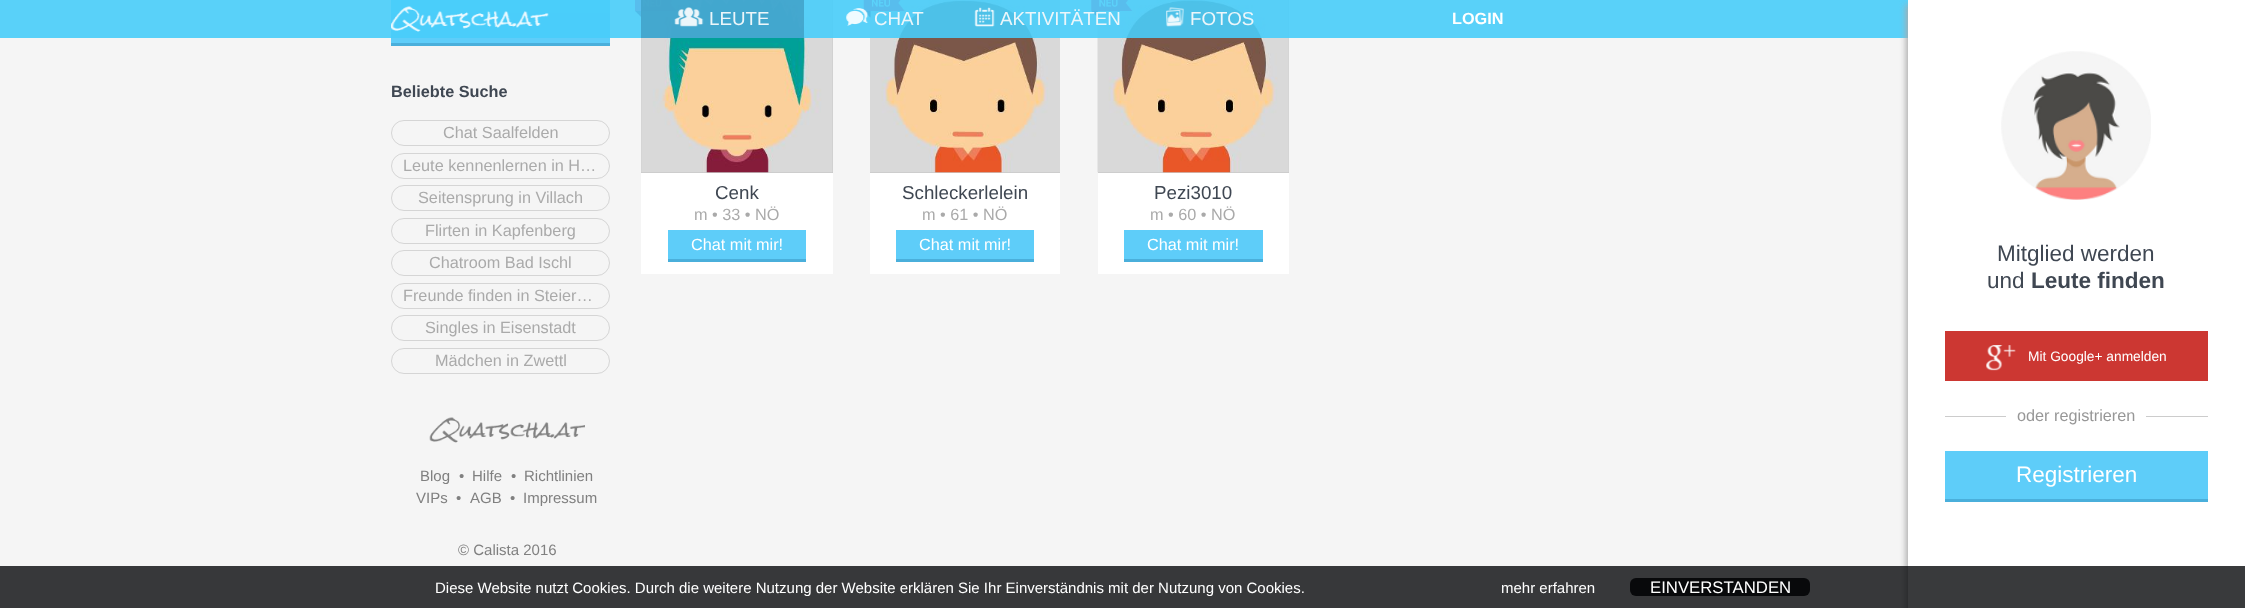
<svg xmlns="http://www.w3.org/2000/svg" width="2245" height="608">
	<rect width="100%" height="100%" fill="#F5F5F5" />
	<rect x="391" y="0" width="219" height="6" fill="#FFFFFF" />
	<rect x="391" y="13" width="219" height="30" fill="#5ECDF9" />
	<rect x="641" y="0" width="192" height="173" fill="#C9C9C9" />
	<image x="641" y="0" width="192" height="173" href="assets/img7.png" />
	<image x="635" y="0" width="41" height="18" href="assets/img8.png" />
	<rect x="870" y="172" width="190" height="1" fill="#C9C9C9" />
	<image x="870" y="0" width="190" height="173" href="assets/img9.png" />
	<image x="863" y="0" width="42" height="18" href="assets/img10.png" />
	<rect x="1098" y="0" width="191" height="173" fill="#C9C9C9" />
	<image x="1097" y="0" width="192" height="173" href="assets/img11.png" />
	<image x="1091" y="0" width="42" height="18" href="assets/img12.png" />
	<rect x="0" y="0" width="1908" height="38" fill="#48CDFA" fill-opacity="0.9" />
	<rect x="391" y="0" width="219" height="13" fill="#48CDFA" fill-opacity="0.9" />
	<image x="391" y="6" width="158" height="26" href="assets/img1.png" />
	<rect x="641" y="0" width="163" height="38" fill="#43A3CA" fill-opacity="0.9" />
	<image x="674" y="7" width="30" height="20" href="assets/img2.png" />
	<text x="709" y="25" font-family="Liberation Sans" font-size="18.75" fill="#ECF6FA">LEUTE</text>
	<image x="846" y="8" width="23" height="18" href="assets/img3.png" />
	<text x="874" y="25" font-family="Liberation Sans" font-size="18.75" fill="#ECF6FA">CHAT</text>
	<image x="974" y="7" width="21" height="20" href="assets/img4.png" />
	<text x="1000" y="25" font-family="Liberation Sans" font-size="18.75" fill="#ECF6FA">AKTIVITÄTEN</text>
	<image x="1166" y="7" width="18" height="20" href="assets/img5.png" />
	<text x="1190" y="25" font-family="Liberation Sans" font-size="18.75" fill="#ECF6FA">FOTOS</text>
	<text x="1452" y="24" font-family="Liberation Sans" font-size="16.25" font-weight="700" fill="#FFFFFF">LOGIN</text>
	<rect x="391" y="43" width="219" height="3" fill="#4AAFDB" />
	<text x="391" y="97" font-family="Liberation Sans" font-size="16.25" font-weight="700" fill="#3F4752">Beliebte Suche</text>
	<rect x="391.5" y="120.5" width="218" height="25" rx="12.5" fill="none" stroke="#D5D5D5" />
	<text x="443" y="138" font-family="Liberation Sans" font-size="16.25" fill="#AAAAAA">Chat Saalfelden</text>
	<rect x="391.5" y="153.5" width="218" height="25" rx="12.5" fill="none" stroke="#D5D5D5" />
	<text x="403" y="171" font-family="Liberation Sans" font-size="16.25" fill="#AAAAAA">Leute kennenlernen in H…</text>
	<rect x="391.5" y="185.5" width="218" height="25" rx="12.5" fill="none" stroke="#D5D5D5" />
	<text x="418" y="203" font-family="Liberation Sans" font-size="16.25" fill="#AAAAAA">Seitensprung in Villach</text>
	<rect x="391.5" y="218.5" width="218" height="25" rx="12.5" fill="none" stroke="#D5D5D5" />
	<text x="425" y="236" font-family="Liberation Sans" font-size="16.25" fill="#AAAAAA">Flirten in Kapfenberg</text>
	<rect x="391.5" y="250.5" width="218" height="25" rx="12.5" fill="none" stroke="#D5D5D5" />
	<text x="429" y="268" font-family="Liberation Sans" font-size="16.25" fill="#AAAAAA">Chatroom Bad Ischl</text>
	<rect x="391.5" y="283.5" width="218" height="25" rx="12.5" fill="none" stroke="#D5D5D5" />
	<text x="403" y="301" font-family="Liberation Sans" font-size="16.25" fill="#AAAAAA">Freunde finden in Steier…</text>
	<rect x="391.5" y="315.5" width="218" height="25" rx="12.5" fill="none" stroke="#D5D5D5" />
	<text x="425" y="333" font-family="Liberation Sans" font-size="16.25" fill="#AAAAAA">Singles in Eisenstadt</text>
	<rect x="391.5" y="348.5" width="218" height="25" rx="12.5" fill="none" stroke="#D5D5D5" />
	<text x="435" y="366" font-family="Liberation Sans" font-size="16.25" fill="#AAAAAA">Mädchen in Zwettl</text>
	<image x="429" y="417" width="156" height="26" href="assets/img6.png" />
	<g font-family="Liberation Sans" font-size="15" fill="#808080">
		<text x="420" y="481">Blog</text>
		<text x="459" y="481">•</text>
		<text x="472" y="481">Hilfe</text>
		<text x="511" y="481">•</text>
		<text x="524" y="481">Richtlinien</text>
		<text x="416" y="503">VIPs</text>
		<text x="456" y="503">•</text>
		<text x="470" y="503">AGB</text>
		<text x="510" y="503">•</text>
		<text x="523" y="503">Impressum</text>
		<text x="458" y="555">© Calista 2016</text>
	</g>
	<rect x="641" y="173" width="192" height="101" fill="#FFFFFF" />
	<text x="715" y="199" font-family="Liberation Sans" font-size="18.75" fill="#3F4752">Cenk</text>
	<text x="694" y="220" font-family="Liberation Sans" font-size="16.25" fill="#AAAAAA">m • 33 • NÖ</text>
	<rect x="668" y="230" width="138" height="29" fill="#5ECDF9" />
	<rect x="668" y="259" width="138" height="3" fill="#4AAFDB" />
	<text x="691" y="250" font-family="Liberation Sans" font-size="16.25" fill="#FFFFFF">Chat mit mir!</text>
	<rect x="870" y="173" width="190" height="101" fill="#FFFFFF" />
	<text x="902" y="199" font-family="Liberation Sans" font-size="18.75" fill="#3F4752">Schleckerlelein</text>
	<text x="922" y="220" font-family="Liberation Sans" font-size="16.25" fill="#AAAAAA">m • 61 • NÖ</text>
	<rect x="896" y="230" width="138" height="29" fill="#5ECDF9" />
	<rect x="896" y="259" width="138" height="3" fill="#4AAFDB" />
	<text x="919" y="250" font-family="Liberation Sans" font-size="16.25" fill="#FFFFFF">Chat mit mir!</text>
	<rect x="1098" y="173" width="191" height="101" fill="#FFFFFF" />
	<text x="1154" y="199" font-family="Liberation Sans" font-size="18.75" fill="#3F4752">Pezi3010</text>
	<text x="1150" y="220" font-family="Liberation Sans" font-size="16.25" fill="#AAAAAA">m • 60 • NÖ</text>
	<rect x="1124" y="230" width="139" height="29" fill="#5ECDF9" />
	<rect x="1124" y="259" width="139" height="3" fill="#4AAFDB" />
	<text x="1147" y="250" font-family="Liberation Sans" font-size="16.25" fill="#FFFFFF">Chat mit mir!</text>
	<rect x="1906" y="5" width="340" height="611" fill="#AAAAAA" filter="blur(3px)" />
	<rect x="1908" y="0" width="337" height="608" fill="#FFFFFF" />
	<image x="2001" y="51" width="150" height="149" href="assets/img13.png" />
	<g font-family="Liberation Sans" font-size="22.5" fill="#3F4752">
		<text x="1997" y="261">Mitglied werden</text>
		<text x="1987" y="288">und</text>
	</g>
	<text x="2031" y="288" font-family="Liberation Sans" font-size="22.5" font-weight="700" fill="#3F4752">Leute finden</text>
	<rect x="1945" y="331" width="263" height="50" fill="#CC3732" />
	<image x="1986" y="345" width="30" height="26" href="assets/img14.png" />
	<text x="2028" y="361" font-family="Liberation Sans" font-size="13.75" fill="#FFFFFF">Mit Google+ anmelden</text>
	<rect x="1945" y="416" width="61" height="1" fill="#CCCCCC" />
	<text x="2017" y="421" font-family="Liberation Sans" font-size="16.25" fill="#979797">oder registrieren</text>
	<rect x="2146" y="416" width="62" height="1" fill="#CCCCCC" />
	<rect x="1945" y="451" width="263" height="48" fill="#5ECDF9" />
	<rect x="1945" y="499" width="263" height="3" fill="#4AAFDB" />
	<text x="2016" y="482" font-family="Liberation Sans" font-size="22.5" fill="#FFFFFF">Registrieren</text>
	<rect x="0" y="566" width="2245" height="42" fill="#08090B" fill-opacity="0.8" />
	<g font-family="Liberation Sans" font-size="15" fill="#FFFFFF">
		<text x="435" y="593">Diese Website nutzt Cookies. Durch die weitere Nutzung der Website erklären Sie Ihr Einverständnis mit der Nutzung von Cookies.</text>
		<text x="1501" y="593">mehr erfahren</text>
	</g>
	<rect x="1630" y="578" width="180" height="18" rx="6" fill="#08090B" />
	<text x="1650" y="593" font-family="Liberation Sans" font-size="16.75" fill="#FFFFFF">EINVERSTANDEN</text>
</svg>
